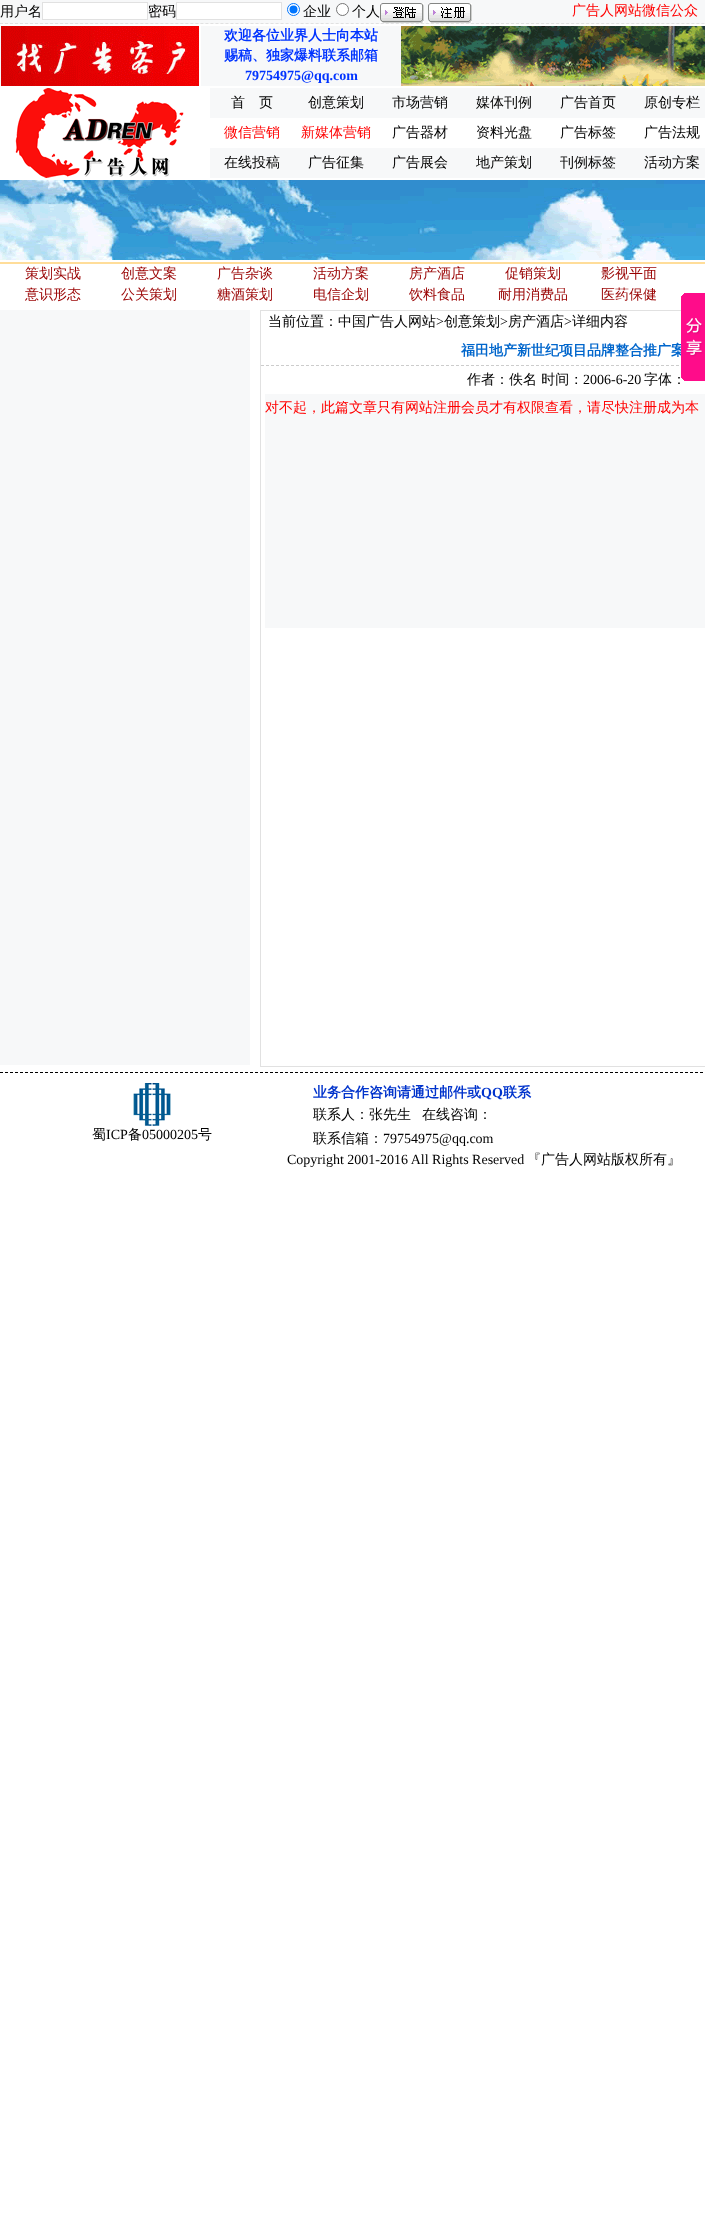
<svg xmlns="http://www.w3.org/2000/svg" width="705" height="2218">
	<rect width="100%" height="100%" fill="#FFFFFF" />
	<rect x="0" y="0" width="705" height="24" fill="#F7F8F9" />
	<path d="M0 23.5H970" fill="none" stroke="#E1E1E1" stroke-dasharray="3 2.01" />
	<text x="0" y="16" font-family="WenQuanYi Zen Hei" font-size="14" font-weight="500" fill="#000000">用户名</text>
	<rect x="42.5" y="2.5" width="105" height="17" fill="#FFFFFF" stroke="#E1E1E1" />
	<text x="148" y="16" font-family="WenQuanYi Zen Hei" font-size="14" font-weight="500" fill="#000000">密码</text>
	<rect x="176.5" y="2.5" width="105" height="17" fill="#FFFFFF" stroke="#E1E1E1" />
	<circle cx="293.5" cy="9.5" r="6" fill="#FFFFFF" stroke="#0075FF" />
	<circle cx="293.5" cy="9.5" r="4" fill="#0075FF" />
	<text x="303" y="16" font-family="WenQuanYi Zen Hei" font-size="14" font-weight="500" fill="#000000">企业</text>
	<circle cx="342.5" cy="9.5" r="6" fill="#FFFFFF" stroke="#767676" />
	<text x="352" y="16" font-family="WenQuanYi Zen Hei" font-size="14" font-weight="500" fill="#000000">个人</text>
	<image x="380" y="3" width="44" height="20" href="assets/img1.png" />
	<image x="428" y="3" width="44" height="20" href="assets/img2.png" />
	<text x="572" y="15" font-family="WenQuanYi Zen Hei" font-size="14" font-weight="500" fill="#FF0000">广告人网站微信公众</text>
	<rect x="0" y="26" width="1" height="60" fill="#F7F8F9" />
	<image x="1" y="26" width="198" height="60" href="assets/img3.png" />
	<rect x="201" y="26" width="200" height="60" fill="#F7F8F9" />
	<g font-family="WenQuanYi Zen Hei" font-size="14" font-weight="700" fill="#0033FF">
		<text x="224" y="40">欢迎各位业界人士向本站</text>
		<text x="224" y="60">赐稿、独家爆料联系邮箱</text>
	</g>
	<text x="245" y="80" font-family="Liberation Serif" font-size="14" font-weight="700" fill="#0033FF">79754975@qq.com</text>
	<image x="401" y="26" width="304" height="60" href="assets/img4.png" />
	<image x="15" y="88" width="169" height="90" href="assets/img5.png" />
	<rect x="210" y="88" width="495" height="30" fill="#F7F8F9" />
	<g font-family="WenQuanYi Zen Hei" font-size="14" font-weight="500" fill="#000000">
		<text x="231" y="107">首</text>
		<text x="259" y="107">页</text>
		<text x="308" y="107">创意策划</text>
		<text x="392" y="107">市场营销</text>
		<text x="476" y="107">媒体刊例</text>
		<text x="560" y="107">广告首页</text>
		<text x="644" y="107">原创专栏</text>
	</g>
	<g font-family="WenQuanYi Zen Hei" font-size="14" font-weight="500" fill="#FF0000">
		<text x="224" y="137">微信营销</text>
		<text x="301" y="137">新媒体营销</text>
	</g>
	<g font-family="WenQuanYi Zen Hei" font-size="14" font-weight="500" fill="#000000">
		<text x="392" y="137">广告器材</text>
		<text x="476" y="137">资料光盘</text>
		<text x="560" y="137">广告标签</text>
		<text x="644" y="137">广告法规</text>
	</g>
	<rect x="210" y="148" width="495" height="30" fill="#F7F8F9" />
	<g font-family="WenQuanYi Zen Hei" font-size="14" font-weight="500" fill="#000000">
		<text x="224" y="167">在线投稿</text>
		<text x="308" y="167">广告征集</text>
		<text x="392" y="167">广告展会</text>
		<text x="476" y="167">地产策划</text>
		<text x="560" y="167">刊例标签</text>
		<text x="644" y="167">活动方案</text>
	</g>
	<image x="0" y="180" width="705" height="80" href="assets/img6.png" />
	<rect x="0" y="262" width="705" height="2" fill="#FFDD99" />
	<g font-family="WenQuanYi Zen Hei" font-size="14" font-weight="500" fill="#990000">
		<text x="25" y="278">策划实战</text>
		<text x="121" y="278">创意文案</text>
		<text x="217" y="278">广告杂谈</text>
		<text x="313" y="278">活动方案</text>
		<text x="409" y="278">房产酒店</text>
		<text x="505" y="278">促销策划</text>
		<text x="601" y="278">影视平面</text>
		<text x="25" y="299">意识形态</text>
		<text x="121" y="299">公关策划</text>
		<text x="217" y="299">糖酒策划</text>
		<text x="313" y="299">电信企划</text>
		<text x="409" y="299">饮料食品</text>
		<text x="498" y="299">耐用消费品</text>
		<text x="601" y="299">医药保健</text>
	</g>
	<rect x="260.5" y="310.5" width="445" height="756" fill="none" stroke="#E1E1E1" />
	<path d="M261 365.5H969" fill="none" stroke="#CCCCCC" stroke-dasharray="3 2" />
	<text x="461" y="355" font-family="WenQuanYi Zen Hei" font-size="14" font-weight="700" fill="#0066CC">福田地产新世纪项目品牌整合推广案</text>
	<image x="681" y="293" width="24" height="88" href="assets/img7.png" />
	<rect x="0" y="310" width="250" height="755" fill="#F7F8F9" />
	<text x="268" y="326" font-family="WenQuanYi Zen Hei" font-size="14" font-weight="500" fill="#000000">当前位置：中国广告人网站</text>
	<text x="436" y="326" font-family="Liberation Serif" font-size="14" fill="#000000">&gt;</text>
	<text x="444" y="326" font-family="WenQuanYi Zen Hei" font-size="14" font-weight="500" fill="#000000">创意策划</text>
	<text x="500" y="326" font-family="Liberation Serif" font-size="14" fill="#000000">&gt;</text>
	<text x="508" y="326" font-family="WenQuanYi Zen Hei" font-size="14" font-weight="500" fill="#000000">房产酒店</text>
	<text x="564" y="326" font-family="Liberation Serif" font-size="14" fill="#000000">&gt;</text>
	<g font-family="WenQuanYi Zen Hei" font-size="14" font-weight="500" fill="#000000">
		<text x="572" y="326">详细内容</text>
		<text x="467" y="384">作者：佚名 时间：</text>
	</g>
	<text x="583" y="384" font-family="Liberation Serif" font-size="14" fill="#000000">2006-6-20</text>
	<text x="644" y="384" font-family="WenQuanYi Zen Hei" font-size="14" font-weight="500" fill="#000000">字体：</text>
	<rect x="265" y="394" width="440" height="234" fill="#F7F8F9" />
	<text x="265" y="412" font-family="WenQuanYi Zen Hei" font-size="14" font-weight="500" fill="#FF0000">对不起，此篇文章只有网站注册会员才有权限查看，请尽快注册成为本</text>
	<path d="M0 1072.5H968" fill="none" stroke="#000000" stroke-dasharray="3 2" />
	<image x="133" y="1083" width="38" height="43" href="assets/img8.png" />
	<text x="92" y="1139" font-family="WenQuanYi Zen Hei" font-size="14" font-weight="500" fill="#000000">蜀</text>
	<text x="106" y="1139" font-family="Liberation Serif" font-size="14" fill="#000000">ICP</text>
	<text x="128" y="1139" font-family="WenQuanYi Zen Hei" font-size="14" font-weight="500" fill="#000000">备</text>
	<text x="142" y="1139" font-family="Liberation Serif" font-size="14" fill="#000000">05000205</text>
	<text x="198" y="1139" font-family="WenQuanYi Zen Hei" font-size="14" font-weight="500" fill="#000000">号</text>
	<text x="313" y="1097" font-family="WenQuanYi Zen Hei" font-size="14" font-weight="700" fill="#0033CC">业务合作咨询请通过邮件或</text>
	<text x="481" y="1097" font-family="Liberation Serif" font-size="14" font-weight="700" fill="#0033CC">QQ</text>
	<text x="503" y="1097" font-family="WenQuanYi Zen Hei" font-size="14" font-weight="700" fill="#0033CC">联系</text>
	<g font-family="WenQuanYi Zen Hei" font-size="14" font-weight="500" fill="#000000">
		<text x="313" y="1119">联系人：张先生</text>
		<text x="422" y="1119">在线咨询：</text>
		<text x="313" y="1143">联系信箱：</text>
	</g>
	<g font-family="Liberation Serif" font-size="14" fill="#000000">
		<text x="383" y="1143">79754975@qq.com</text>
		<text x="287" y="1164">Copyright 2001-2016 All Rights Reserved</text>
	</g>
	<text x="527" y="1164" font-family="WenQuanYi Zen Hei" font-size="14" font-weight="500" fill="#000000">『广告人网站版权所有』</text>
</svg>
